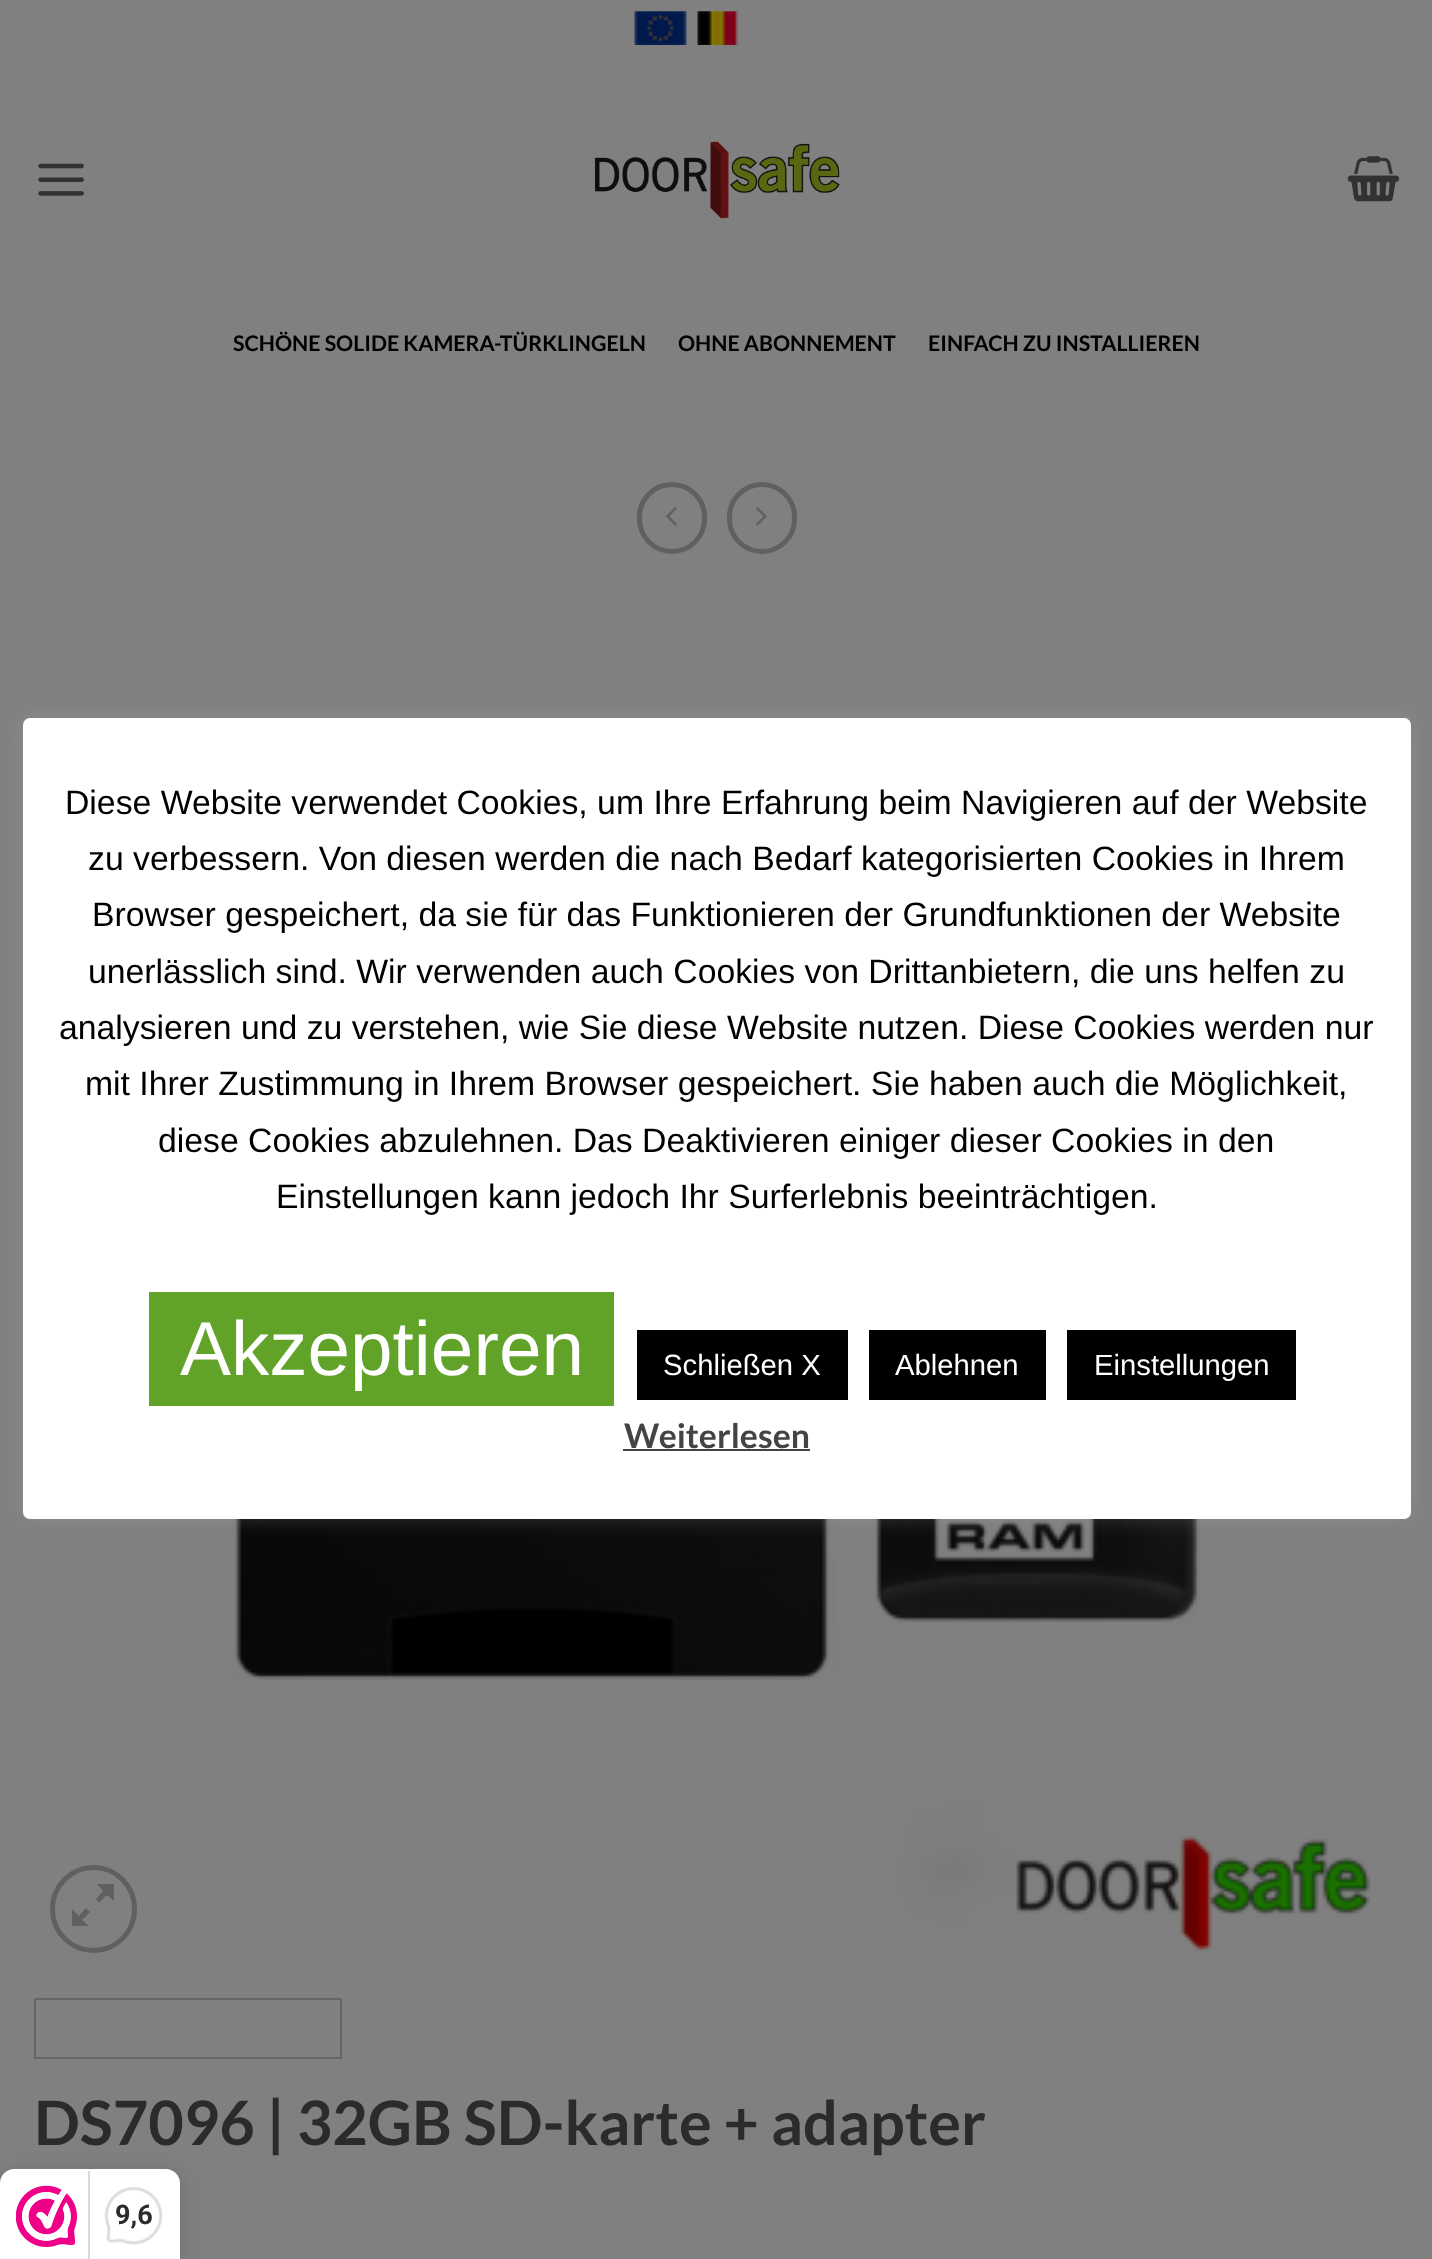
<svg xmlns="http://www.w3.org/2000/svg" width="1432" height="2259">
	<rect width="100%" height="100%" fill="#808080" />
	<image x="634" y="11" width="53" height="34" href="assets/img1.png" />
	<image x="697" y="11" width="42" height="34" href="assets/img2.png" />
	<image x="38" y="163" width="46" height="33" href="assets/img3.png" />
	<image x="594" y="141" width="246" height="78" href="assets/img4.png" />
	<image x="1347" y="156" width="53" height="46" href="assets/img5.png" />
	<g font-family="Lato" font-size="21.4" font-weight="700" fill="#000000">
		<text x="233" y="351">SCHÖNE SOLIDE KAMERA-TÜRKLINGELN</text>
		<text x="678" y="351">OHNE ABONNEMENT</text>
		<text x="928" y="351">EINFACH ZU INSTALLIEREN</text>
	</g>
	<rect x="639.5" y="484.5" width="65" height="67" rx="32.5" fill="none" stroke="#606060" stroke-width="5" />
	<image x="666" y="507" width="11" height="19" href="assets/img6.png" />
	<rect x="729.5" y="484.5" width="65" height="67" rx="32.5" fill="none" stroke="#606060" stroke-width="5" />
	<image x="756" y="507" width="11" height="19" href="assets/img7.png" />
	<rect x="52.5" y="1867.5" width="82" height="83" rx="41" fill="none" stroke="#606060" stroke-width="5" />
	<path d="M114 1884V1901L107 1895L99 1903L96 1899L103 1891L97 1884ZM90 1912L82 1920L89 1926H72V1909L79 1916L86 1908Z" fill="#606060" />
	<image x="233" y="1519" width="1138" height="432" href="assets/img8.png" />
	<rect x="35" y="1999" width="306" height="59" fill="none" stroke="#666666" stroke-width="2" />
	<text x="34" y="2145" font-family="Lato" font-size="61.25" font-weight="700" fill="#2B2B2B">DS7096 | 32GB SD-karte + adapter</text>
	<rect x="23" y="716" width="1388" height="801" rx="7" fill="#ACABAB" fill-opacity="0.3" filter="blur(11px)" />
	<rect x="23" y="718" width="1388" height="801" rx="7" fill="#FFFFFF" />
	<g font-family="Liberation Sans" font-size="33.75" fill="#000000">
		<text x="65" y="814">Diese Website verwendet Cookies, um Ihre Erfahrung beim Navigieren auf der Website</text>
		<text x="88" y="870">zu verbessern. Von diesen werden die nach Bedarf kategorisierten Cookies in Ihrem</text>
		<text x="92" y="926">Browser gespeichert, da sie für das Funktionieren der Grundfunktionen der Website</text>
		<text x="88" y="983">unerlässlich sind. Wir verwenden auch Cookies von Drittanbietern, die uns helfen zu</text>
		<text x="59" y="1039">analysieren und zu verstehen, wie Sie diese Website nutzen. Diese Cookies werden nur</text>
		<text x="85" y="1095">mit Ihrer Zustimmung in Ihrem Browser gespeichert. Sie haben auch die Möglichkeit,</text>
		<text x="158" y="1152">diese Cookies abzulehnen. Das Deaktivieren einiger dieser Cookies in den</text>
		<text x="276" y="1208">Einstellungen kann jedoch Ihr Surferlebnis beeinträchtigen.</text>
	</g>
	<rect x="149" y="1292" width="465" height="114" fill="#61A229" />
	<text x="180" y="1375" font-family="Liberation Sans" font-size="76.5" fill="#FFFFFF">Akzeptieren</text>
	<rect x="637" y="1330" width="211" height="70" fill="#000000" />
	<text x="663" y="1375" font-family="Liberation Sans" font-size="29.25" fill="#FFFFFF">Schließen X</text>
	<rect x="869" y="1330" width="177" height="70" fill="#000000" />
	<text x="895" y="1375" font-family="Liberation Sans" font-size="29.25" fill="#FFFFFF">Ablehnen</text>
	<rect x="1067" y="1330" width="229" height="70" fill="#000000" />
	<text x="1094" y="1375" font-family="Liberation Sans" font-size="29.25" fill="#FFFFFF">Einstellungen</text>
	<text x="624" y="1448" font-family="Lato" font-size="33.75" font-weight="700" fill="#444444">Weiterlesen</text>
	<rect x="623" y="1449" width="187" height="2" fill="#444444" />
	<rect x="0" y="2174" width="180" height="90" rx="14" fill="#000000" fill-opacity="0.15" filter="blur(11px)" />
	<path d="M14 2169H166C173.5 2169 180 2175.5 180 2183V2259H0V2183C0 2175.5 6.5 2169 14 2169Z" fill="#FFFFFF" />
	<image x="16" y="2185" width="61" height="63" href="assets/img9.png" />
	<rect x="88" y="2171" width="2" height="88" fill="#D9D9D9" />
	<image x="104" y="2186" width="59" height="59" href="assets/img10.png" />
	<text x="115" y="2224" font-family="Roboto" font-size="27" font-weight="700" fill="#2B2B2B">9,6</text>
</svg>
